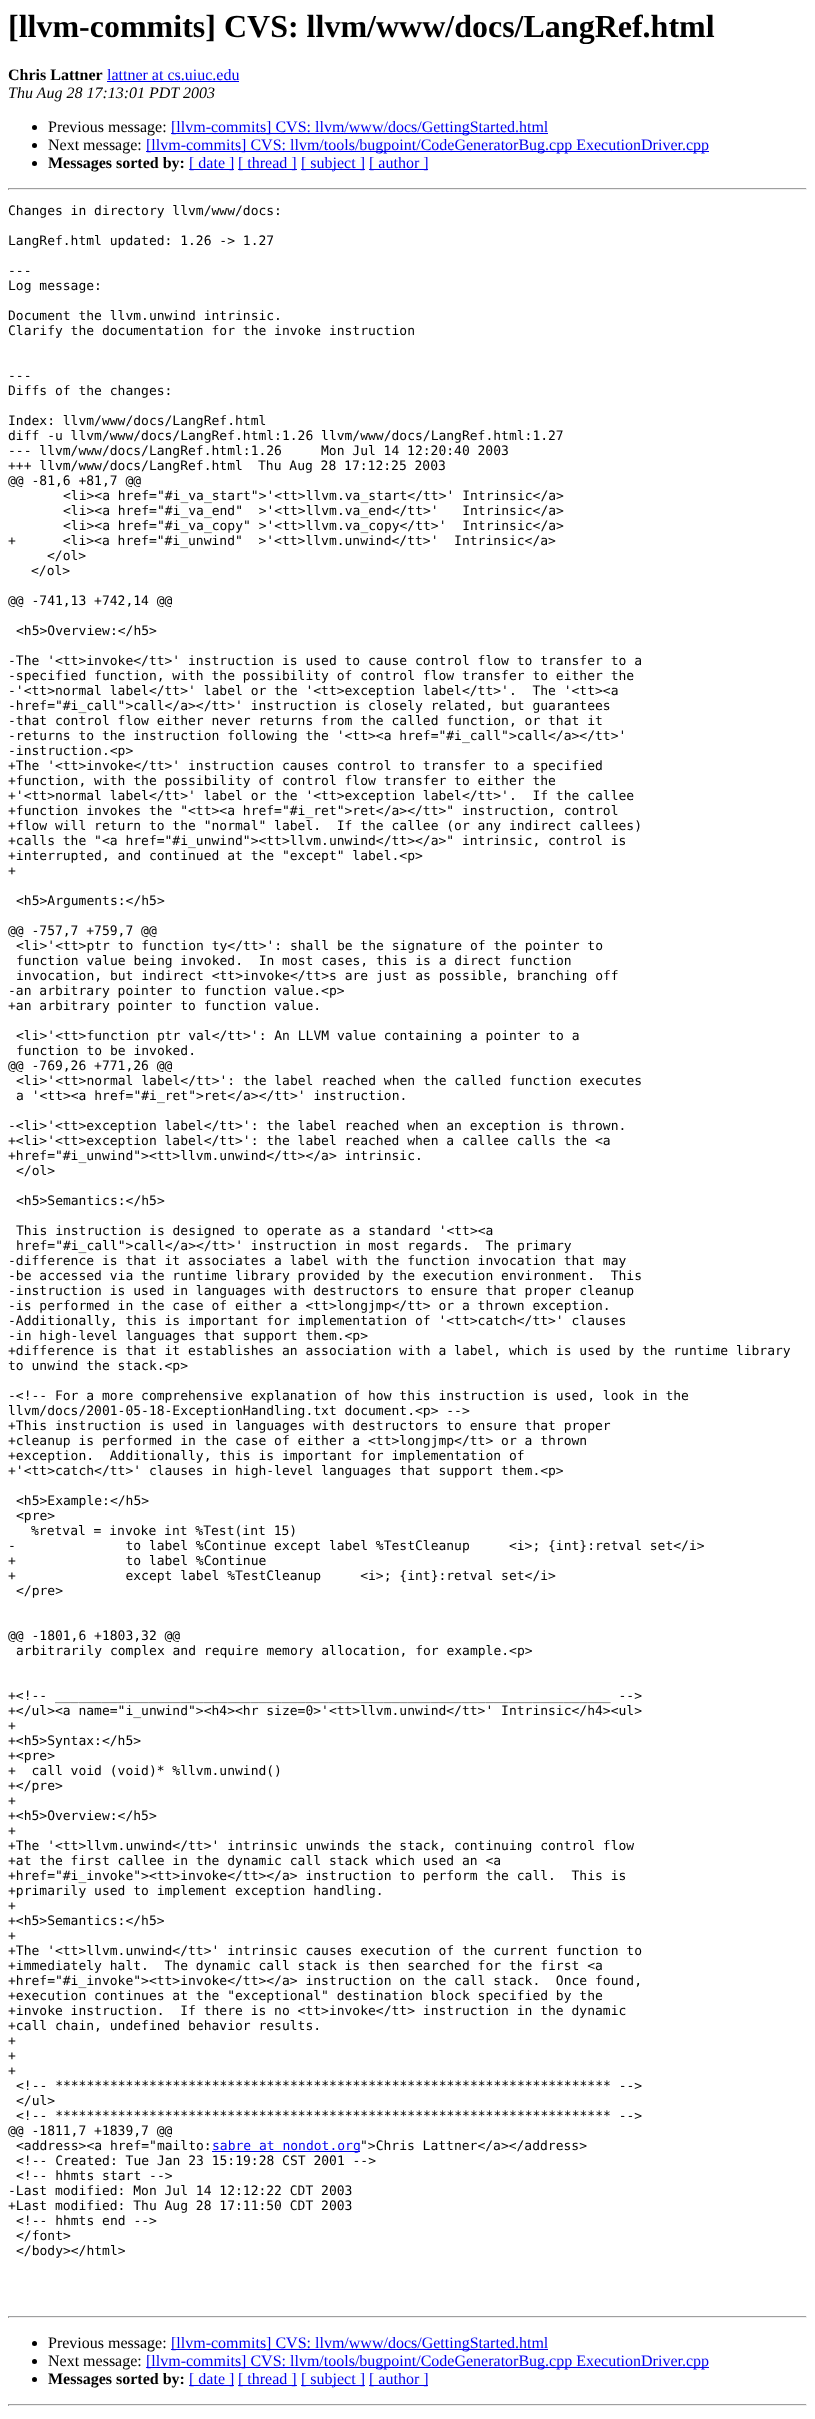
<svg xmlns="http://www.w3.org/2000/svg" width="815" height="2419">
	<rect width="100%" height="100%" fill="#FFFFFF" />
	<text x="8" y="37" font-family="Liberation Serif" font-size="32" font-weight="700" fill="#000000">[llvm-commits] CVS: llvm/www/docs/LangRef.html</text>
	<text x="8" y="80" font-family="Liberation Serif" font-size="16" font-weight="700" fill="#000000">Chris Lattner</text>
	<text x="107" y="80" font-family="Liberation Serif" font-size="16" fill="#0000EE">lattner at cs.uiuc.edu</text>
	<rect x="107" y="81" width="132" height="1" fill="#0000EE" />
	<text x="8" y="98" font-family="Liberation Serif" font-size="16" font-style="italic" fill="#000000">Thu Aug 28 17:13:01 PDT 2003</text>
	<circle cx="34.5" cy="127.5" r="2.5" fill="#000000" />
	<text x="48" y="132" font-family="Liberation Serif" font-size="16" fill="#000000">Previous message:</text>
	<rect x="171" y="133" width="377" height="1" fill="#0000EE" />
	<text x="171" y="132" font-family="Liberation Serif" font-size="16" fill="#0000EE">[llvm-commits] CVS: llvm/www/docs/GettingStarted.html</text>
	<circle cx="34.5" cy="145.5" r="2.5" fill="#000000" />
	<text x="48" y="150" font-family="Liberation Serif" font-size="16" fill="#000000">Next message:</text>
	<rect x="146" y="151" width="563" height="1" fill="#0000EE" />
	<text x="146" y="150" font-family="Liberation Serif" font-size="16" fill="#0000EE">[llvm-commits] CVS: llvm/tools/bugpoint/CodeGeneratorBug.cpp ExecutionDriver.cpp</text>
	<circle cx="34.5" cy="163.5" r="2.5" fill="#000000" />
	<text x="48" y="168" font-family="Liberation Serif" font-size="16" font-weight="700" fill="#000000">Messages sorted by:</text>
	<rect x="189" y="169" width="45" height="1" fill="#0000EE" />
	<text x="189" y="168" font-family="Liberation Serif" font-size="16" fill="#0000EE">[ date ]</text>
	<rect x="238" y="169" width="59" height="1" fill="#0000EE" />
	<text x="238" y="168" font-family="Liberation Serif" font-size="16" fill="#0000EE">[ thread ]</text>
	<rect x="301" y="169" width="64" height="1" fill="#0000EE" />
	<text x="301" y="168" font-family="Liberation Serif" font-size="16" fill="#0000EE">[ subject ]</text>
	<rect x="369" y="169" width="59" height="1" fill="#0000EE" />
	<text x="369" y="168" font-family="Liberation Serif" font-size="16" fill="#0000EE">[ author ]</text>
	<rect x="8" y="188" width="799" height="1" fill="#9F9F9F" />
	<rect x="806" y="188" width="1" height="2" fill="#EEEEEE" />
	<rect x="8" y="189" width="799" height="1" fill="#EEEEEE" />
	<rect x="8" y="188" width="1" height="2" fill="#9F9F9F" />
	<g font-family="DejaVu Sans Mono" font-size="13" fill="#000000">
		<text x="8" y="215">Changes in directory llvm/www/docs:</text>
		<text x="8" y="245">LangRef.html updated: 1.26 -&gt; 1.27</text>
		<text x="8" y="275">---</text>
		<text x="8" y="290">Log message:</text>
		<text x="8" y="320">Document the llvm.unwind intrinsic.</text>
		<text x="8" y="335">Clarify the documentation for the invoke instruction</text>
		<text x="8" y="380">---</text>
		<text x="8" y="395">Diffs of the changes:</text>
		<text x="8" y="425">Index: llvm/www/docs/LangRef.html</text>
		<text x="8" y="440">diff -u llvm/www/docs/LangRef.html:1.26 llvm/www/docs/LangRef.html:1.27</text>
		<text x="8" y="455">--- llvm/www/docs/LangRef.html:1.26</text>
		<text x="321" y="455">Mon Jul 14 12:20:40 2003</text>
		<text x="8" y="470">+++ llvm/www/docs/LangRef.html</text>
		<text x="258" y="470">Thu Aug 28 17:12:25 2003</text>
		<text x="8" y="485">@@ -81,6 +81,7 @@</text>
		<text x="63" y="500">&lt;li&gt;&lt;a href="#i_va_start"&gt;'&lt;tt&gt;llvm.va_start&lt;/tt&gt;' Intrinsic&lt;/a&gt;</text>
		<text x="63" y="515" xml:space="preserve">&lt;li&gt;&lt;a href="#i_va_end"  &gt;'&lt;tt&gt;llvm.va_end&lt;/tt&gt;'   Intrinsic&lt;/a&gt;</text>
		<text x="63" y="530" xml:space="preserve">&lt;li&gt;&lt;a href="#i_va_copy" &gt;'&lt;tt&gt;llvm.va_copy&lt;/tt&gt;'  Intrinsic&lt;/a&gt;</text>
		<text x="8" y="545" xml:space="preserve">+      &lt;li&gt;&lt;a href="#i_unwind"  &gt;'&lt;tt&gt;llvm.unwind&lt;/tt&gt;'  Intrinsic&lt;/a&gt;</text>
		<text x="47" y="560">&lt;/ol&gt;</text>
		<text x="31" y="575">&lt;/ol&gt;</text>
		<text x="8" y="605">@@ -741,13 +742,14 @@</text>
		<text x="16" y="635">&lt;h5&gt;Overview:&lt;/h5&gt;</text>
		<text x="8" y="665">-The '&lt;tt&gt;invoke&lt;/tt&gt;' instruction is used to cause control flow to transfer to a</text>
		<text x="8" y="680">-specified function, with the possibility of control flow transfer to either the</text>
		<text x="8" y="695" xml:space="preserve">-'&lt;tt&gt;normal label&lt;/tt&gt;' label or the '&lt;tt&gt;exception label&lt;/tt&gt;'.  The '&lt;tt&gt;&lt;a</text>
		<text x="8" y="710">-href="#i_call"&gt;call&lt;/a&gt;&lt;/tt&gt;' instruction is closely related, but guarantees</text>
		<text x="8" y="725">-that control flow either never returns from the called function, or that it</text>
		<text x="8" y="740">-returns to the instruction following the '&lt;tt&gt;&lt;a href="#i_call"&gt;call&lt;/a&gt;&lt;/tt&gt;'</text>
		<text x="8" y="755">-instruction.&lt;p&gt;</text>
		<text x="8" y="770">+The '&lt;tt&gt;invoke&lt;/tt&gt;' instruction causes control to transfer to a specified</text>
		<text x="8" y="785">+function, with the possibility of control flow transfer to either the</text>
		<text x="8" y="800" xml:space="preserve">+'&lt;tt&gt;normal label&lt;/tt&gt;' label or the '&lt;tt&gt;exception label&lt;/tt&gt;'.  If the callee</text>
		<text x="8" y="815">+function invokes the "&lt;tt&gt;&lt;a href="#i_ret"&gt;ret&lt;/a&gt;&lt;/tt&gt;" instruction, control</text>
		<text x="8" y="830" xml:space="preserve">+flow will return to the "normal" label.  If the callee (or any indirect callees)</text>
		<text x="8" y="845">+calls the "&lt;a href="#i_unwind"&gt;&lt;tt&gt;llvm.unwind&lt;/tt&gt;&lt;/a&gt;" intrinsic, control is</text>
		<text x="8" y="860">+interrupted, and continued at the "except" label.&lt;p&gt;</text>
		<text x="8" y="875">+</text>
		<text x="16" y="905">&lt;h5&gt;Arguments:&lt;/h5&gt;</text>
		<text x="8" y="935">@@ -757,7 +759,7 @@</text>
		<text x="16" y="950">&lt;li&gt;'&lt;tt&gt;ptr to function ty&lt;/tt&gt;': shall be the signature of the pointer to</text>
		<text x="16" y="965" xml:space="preserve">function value being invoked.  In most cases, this is a direct function</text>
		<text x="16" y="980">invocation, but indirect &lt;tt&gt;invoke&lt;/tt&gt;s are just as possible, branching off</text>
		<text x="8" y="995">-an arbitrary pointer to function value.&lt;p&gt;</text>
		<text x="8" y="1010">+an arbitrary pointer to function value.</text>
		<text x="16" y="1040">&lt;li&gt;'&lt;tt&gt;function ptr val&lt;/tt&gt;': An LLVM value containing a pointer to a</text>
		<text x="16" y="1055">function to be invoked.</text>
		<text x="8" y="1070">@@ -769,26 +771,26 @@</text>
		<text x="16" y="1085">&lt;li&gt;'&lt;tt&gt;normal label&lt;/tt&gt;': the label reached when the called function executes</text>
		<text x="16" y="1100">a '&lt;tt&gt;&lt;a href="#i_ret"&gt;ret&lt;/a&gt;&lt;/tt&gt;' instruction.</text>
		<text x="8" y="1130">-&lt;li&gt;'&lt;tt&gt;exception label&lt;/tt&gt;': the label reached when an exception is thrown.</text>
		<text x="8" y="1145">+&lt;li&gt;'&lt;tt&gt;exception label&lt;/tt&gt;': the label reached when a callee calls the &lt;a</text>
		<text x="8" y="1160">+href="#i_unwind"&gt;&lt;tt&gt;llvm.unwind&lt;/tt&gt;&lt;/a&gt; intrinsic.</text>
		<text x="16" y="1175">&lt;/ol&gt;</text>
		<text x="16" y="1205">&lt;h5&gt;Semantics:&lt;/h5&gt;</text>
		<text x="16" y="1235">This instruction is designed to operate as a standard '&lt;tt&gt;&lt;a</text>
		<text x="16" y="1250" xml:space="preserve">href="#i_call"&gt;call&lt;/a&gt;&lt;/tt&gt;' instruction in most regards.  The primary</text>
		<text x="8" y="1265">-difference is that it associates a label with the function invocation that may</text>
		<text x="8" y="1280" xml:space="preserve">-be accessed via the runtime library provided by the execution environment.  This</text>
		<text x="8" y="1295">-instruction is used in languages with destructors to ensure that proper cleanup</text>
		<text x="8" y="1310">-is performed in the case of either a &lt;tt&gt;longjmp&lt;/tt&gt; or a thrown exception.</text>
		<text x="8" y="1325">-Additionally, this is important for implementation of '&lt;tt&gt;catch&lt;/tt&gt;' clauses</text>
		<text x="8" y="1340">-in high-level languages that support them.&lt;p&gt;</text>
		<text x="8" y="1355">+difference is that it establishes an association with a label, which is used by the runtime library</text>
		<text x="8" y="1370">to unwind the stack.&lt;p&gt;</text>
		<text x="8" y="1400">-&lt;!-- For a more comprehensive explanation of how this instruction is used, look in the</text>
		<text x="8" y="1415">llvm/docs/2001-05-18-ExceptionHandling.txt document.&lt;p&gt; --&gt;</text>
		<text x="8" y="1430">+This instruction is used in languages with destructors to ensure that proper</text>
		<text x="8" y="1445">+cleanup is performed in the case of either a &lt;tt&gt;longjmp&lt;/tt&gt; or a thrown</text>
		<text x="8" y="1460" xml:space="preserve">+exception.  Additionally, this is important for implementation of</text>
		<text x="8" y="1475">+'&lt;tt&gt;catch&lt;/tt&gt;' clauses in high-level languages that support them.&lt;p&gt;</text>
		<text x="16" y="1505">&lt;h5&gt;Example:&lt;/h5&gt;</text>
		<text x="16" y="1520">&lt;pre&gt;</text>
		<text x="31" y="1535">%retval = invoke int %Test(int 15)</text>
		<text x="8" y="1550" xml:space="preserve">-              to label %Continue except label %TestCleanup     &lt;i&gt;; {int}:retval set&lt;/i&gt;</text>
		<text x="8" y="1565" xml:space="preserve">+              to label %Continue</text>
		<text x="8" y="1580" xml:space="preserve">+              except label %TestCleanup     &lt;i&gt;; {int}:retval set&lt;/i&gt;</text>
		<text x="16" y="1595">&lt;/pre&gt;</text>
		<text x="8" y="1640">@@ -1801,6 +1803,32 @@</text>
		<text x="16" y="1655">arbitrarily complex and require memory allocation, for example.&lt;p&gt;</text>
		<text x="8" y="1700">+&lt;!-- _______________________________________________________________________ --&gt;</text>
		<text x="8" y="1715">+&lt;/ul&gt;&lt;a name="i_unwind"&gt;&lt;h4&gt;&lt;hr size=0&gt;'&lt;tt&gt;llvm.unwind&lt;/tt&gt;' Intrinsic&lt;/h4&gt;&lt;ul&gt;</text>
		<text x="8" y="1730">+</text>
		<text x="8" y="1745">+&lt;h5&gt;Syntax:&lt;/h5&gt;</text>
		<text x="8" y="1760">+&lt;pre&gt;</text>
		<text x="8" y="1775" xml:space="preserve">+  call void (void)* %llvm.unwind()</text>
		<text x="8" y="1790">+&lt;/pre&gt;</text>
		<text x="8" y="1805">+</text>
		<text x="8" y="1820">+&lt;h5&gt;Overview:&lt;/h5&gt;</text>
		<text x="8" y="1835">+</text>
		<text x="8" y="1850">+The '&lt;tt&gt;llvm.unwind&lt;/tt&gt;' intrinsic unwinds the stack, continuing control flow</text>
		<text x="8" y="1865">+at the first callee in the dynamic call stack which used an &lt;a</text>
		<text x="8" y="1880" xml:space="preserve">+href="#i_invoke"&gt;&lt;tt&gt;invoke&lt;/tt&gt;&lt;/a&gt; instruction to perform the call.  This is</text>
		<text x="8" y="1895">+primarily used to implement exception handling.</text>
		<text x="8" y="1910">+</text>
		<text x="8" y="1925">+&lt;h5&gt;Semantics:&lt;/h5&gt;</text>
		<text x="8" y="1940">+</text>
		<text x="8" y="1955">+The '&lt;tt&gt;llvm.unwind&lt;/tt&gt;' intrinsic causes execution of the current function to</text>
		<text x="8" y="1970" xml:space="preserve">+immediately halt.  The dynamic call stack is then searched for the first &lt;a</text>
		<text x="8" y="1985" xml:space="preserve">+href="#i_invoke"&gt;&lt;tt&gt;invoke&lt;/tt&gt;&lt;/a&gt; instruction on the call stack.  Once found,</text>
		<text x="8" y="2000">+execution continues at the "exceptional" destination block specified by the</text>
		<text x="8" y="2015" xml:space="preserve">+invoke instruction.  If there is no &lt;tt&gt;invoke&lt;/tt&gt; instruction in the dynamic</text>
		<text x="8" y="2030">+call chain, undefined behavior results.</text>
		<text x="8" y="2045">+</text>
		<text x="8" y="2060">+</text>
		<text x="8" y="2075">+</text>
		<text x="16" y="2090">&lt;!-- *********************************************************************** --&gt;</text>
		<text x="16" y="2105">&lt;/ul&gt;</text>
		<text x="16" y="2120">&lt;!-- *********************************************************************** --&gt;</text>
		<text x="8" y="2135">@@ -1811,7 +1839,7 @@</text>
		<text x="16" y="2150">&lt;address&gt;&lt;a href="mailto:</text>
	</g>
	<rect x="212" y="2151" width="148" height="1" fill="#0000EE" />
	<text x="212" y="2150" font-family="DejaVu Sans Mono" font-size="13" fill="#0000EE">sabre at nondot.org</text>
	<g font-family="DejaVu Sans Mono" font-size="13" fill="#000000">
		<text x="360" y="2150">"&gt;Chris Lattner&lt;/a&gt;&lt;/address&gt;</text>
		<text x="16" y="2165">&lt;!-- Created: Tue Jan 23 15:19:28 CST 2001 --&gt;</text>
		<text x="16" y="2180">&lt;!-- hhmts start --&gt;</text>
		<text x="8" y="2195">-Last modified: Mon Jul 14 12:12:22 CDT 2003</text>
		<text x="8" y="2210">+Last modified: Thu Aug 28 17:11:50 CDT 2003</text>
		<text x="16" y="2225">&lt;!-- hhmts end --&gt;</text>
		<text x="16" y="2240">&lt;/font&gt;</text>
		<text x="16" y="2255">&lt;/body&gt;&lt;/html&gt;</text>
	</g>
	<rect x="8" y="2316" width="799" height="1" fill="#9F9F9F" />
	<rect x="806" y="2316" width="1" height="2" fill="#EEEEEE" />
	<rect x="8" y="2317" width="799" height="1" fill="#EEEEEE" />
	<rect x="8" y="2316" width="1" height="2" fill="#9F9F9F" />
	<circle cx="34.5" cy="2343.5" r="2.5" fill="#000000" />
	<text x="48" y="2348" font-family="Liberation Serif" font-size="16" fill="#000000">Previous message:</text>
	<rect x="171" y="2349" width="377" height="1" fill="#0000EE" />
	<text x="171" y="2348" font-family="Liberation Serif" font-size="16" fill="#0000EE">[llvm-commits] CVS: llvm/www/docs/GettingStarted.html</text>
	<circle cx="34.5" cy="2361.5" r="2.5" fill="#000000" />
	<text x="48" y="2366" font-family="Liberation Serif" font-size="16" fill="#000000">Next message:</text>
	<rect x="146" y="2367" width="563" height="1" fill="#0000EE" />
	<text x="146" y="2366" font-family="Liberation Serif" font-size="16" fill="#0000EE">[llvm-commits] CVS: llvm/tools/bugpoint/CodeGeneratorBug.cpp ExecutionDriver.cpp</text>
	<circle cx="34.5" cy="2379.5" r="2.5" fill="#000000" />
	<text x="48" y="2384" font-family="Liberation Serif" font-size="16" font-weight="700" fill="#000000">Messages sorted by:</text>
	<rect x="189" y="2385" width="45" height="1" fill="#0000EE" />
	<text x="189" y="2384" font-family="Liberation Serif" font-size="16" fill="#0000EE">[ date ]</text>
	<rect x="238" y="2385" width="59" height="1" fill="#0000EE" />
	<text x="238" y="2384" font-family="Liberation Serif" font-size="16" fill="#0000EE">[ thread ]</text>
	<rect x="301" y="2385" width="64" height="1" fill="#0000EE" />
	<text x="301" y="2384" font-family="Liberation Serif" font-size="16" fill="#0000EE">[ subject ]</text>
	<rect x="369" y="2385" width="59" height="1" fill="#0000EE" />
	<text x="369" y="2384" font-family="Liberation Serif" font-size="16" fill="#0000EE">[ author ]</text>
	<rect x="8" y="2404" width="799" height="1" fill="#9F9F9F" />
	<rect x="806" y="2404" width="1" height="2" fill="#EEEEEE" />
	<rect x="8" y="2405" width="799" height="1" fill="#EEEEEE" />
	<rect x="8" y="2404" width="1" height="2" fill="#9F9F9F" />
</svg>
